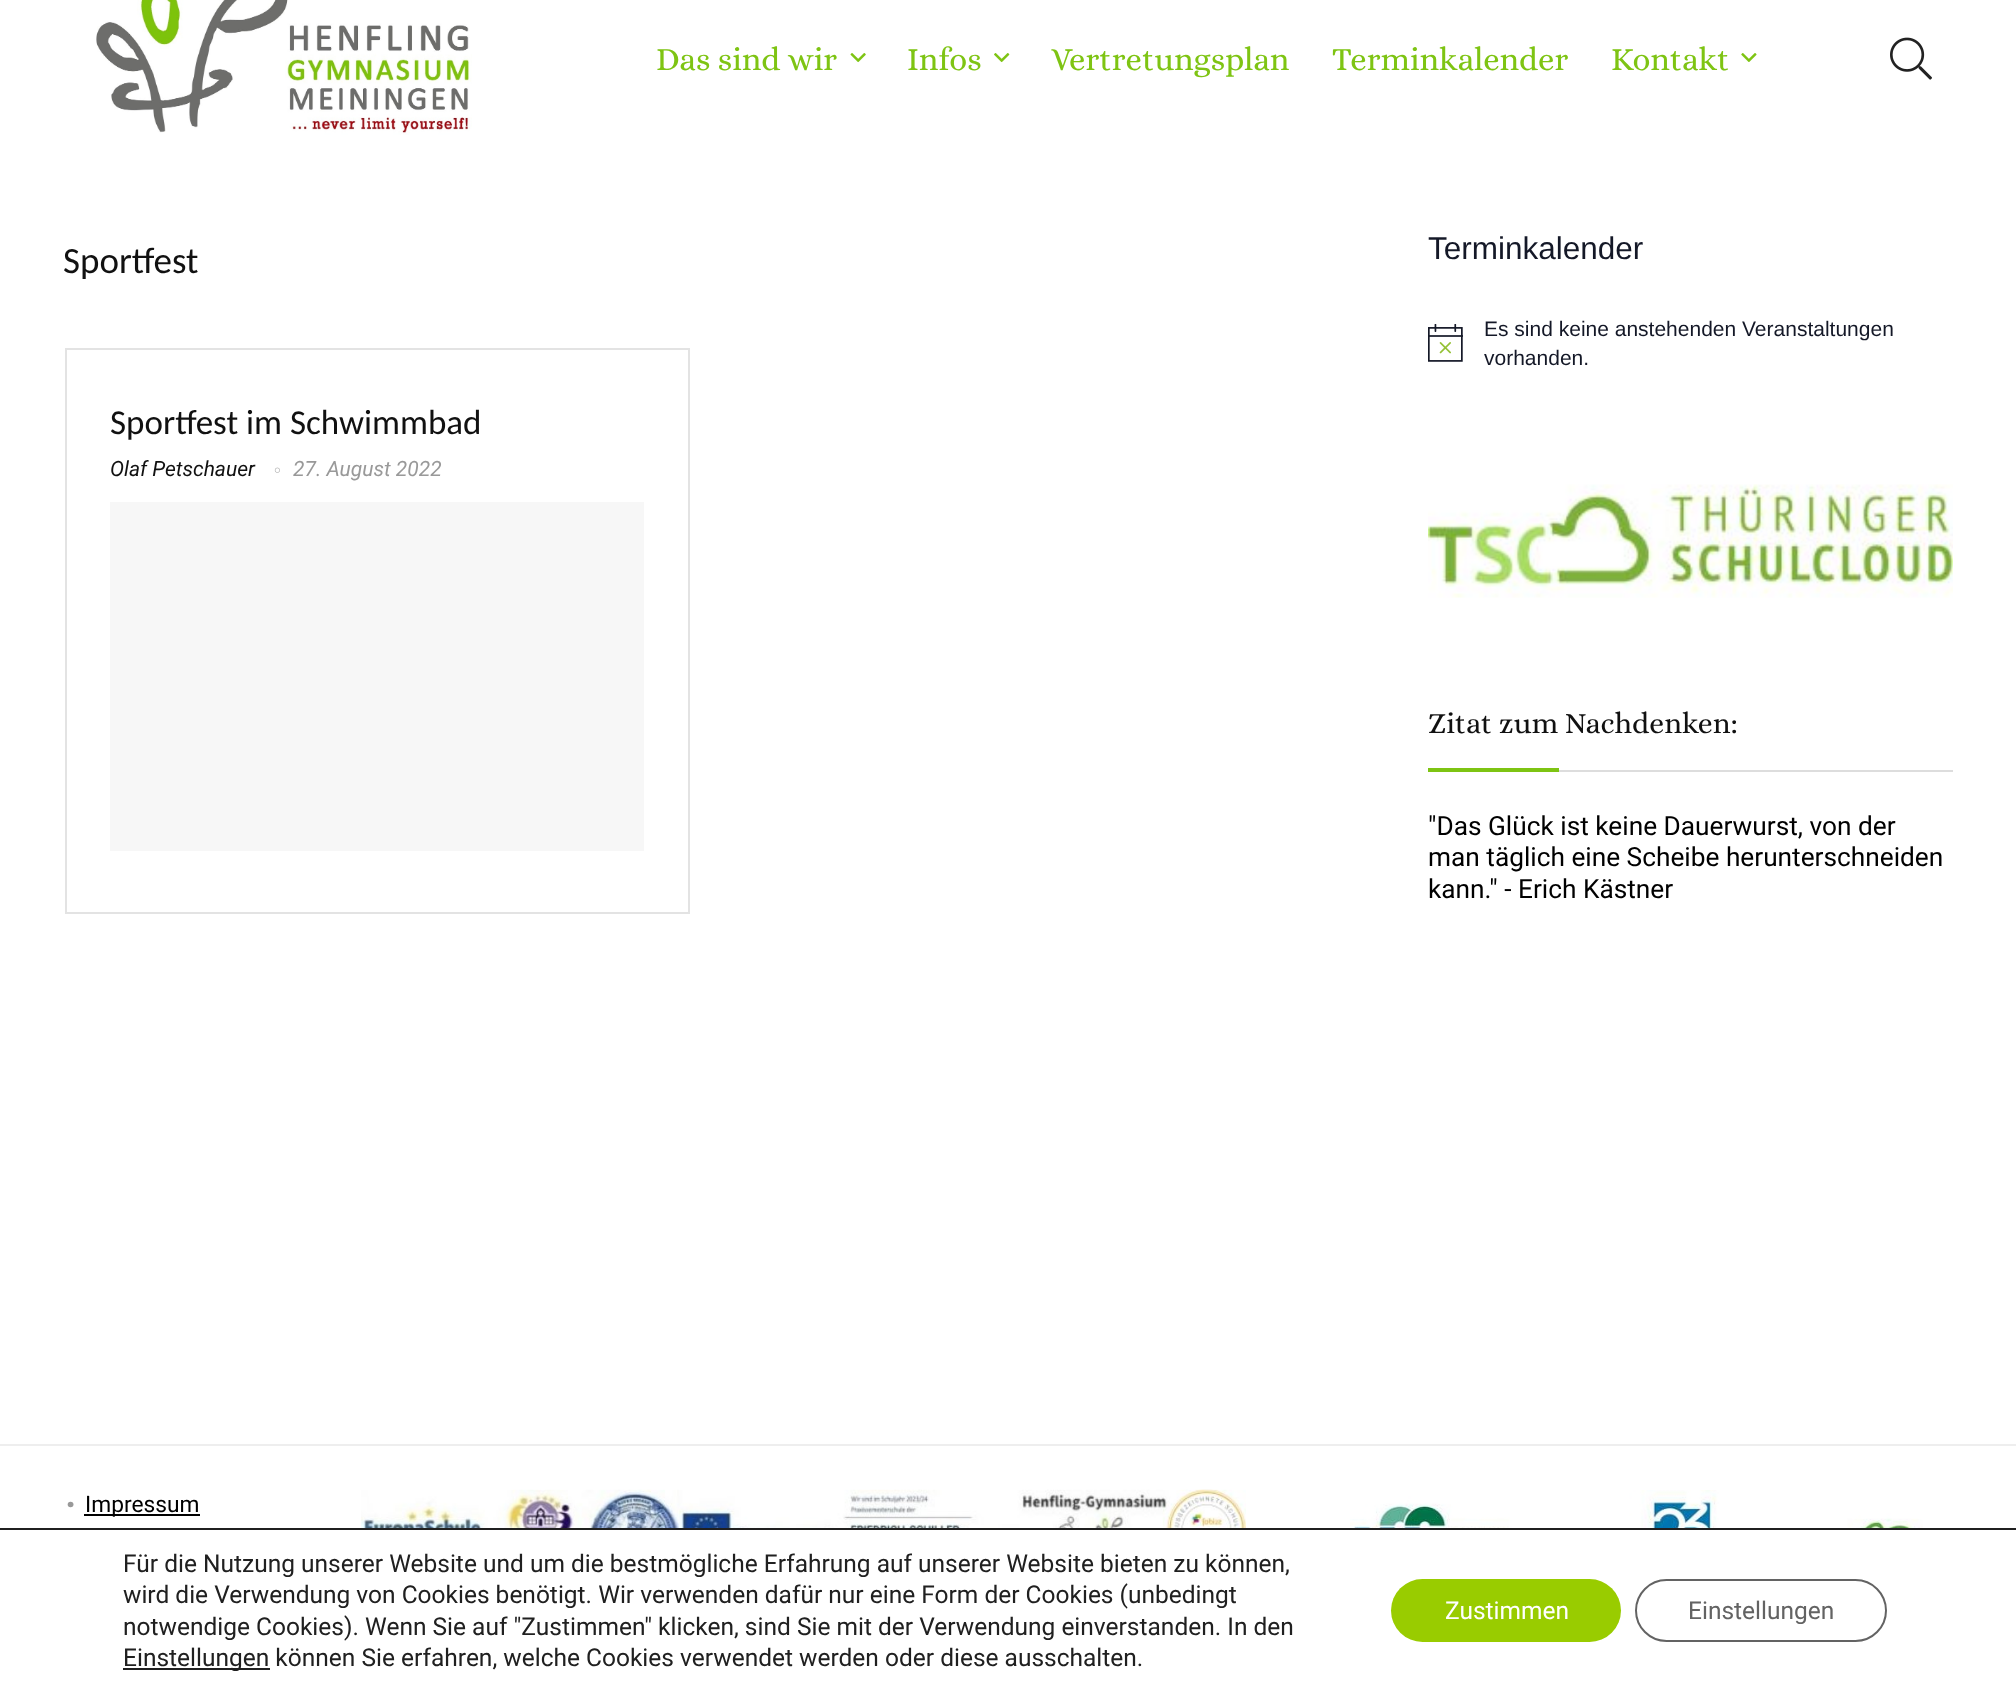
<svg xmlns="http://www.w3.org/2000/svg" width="2016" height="1689">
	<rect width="100%" height="100%" fill="#FFFFFF" />
	<image x="96" y="0" width="376" height="135" href="assets/img1.png" />
	<text x="656" y="70" font-family="Alice" font-size="32.75" fill="#7EC413">Das sind wir</text>
	<image x="850" y="53" width="16" height="10" href="assets/img2.png" />
	<text x="907" y="70" font-family="Alice" font-size="32.75" fill="#7EC413">Infos</text>
	<image x="994" y="53" width="16" height="10" href="assets/img3.png" />
	<g font-family="Alice" font-size="32.75" fill="#7EC413">
		<text x="1051" y="70">Vertretungsplan</text>
		<text x="1332" y="70">Terminkalender</text>
		<text x="1611" y="70">Kontakt</text>
	</g>
	<image x="1741" y="53" width="16" height="9" href="assets/img4.png" />
	<image x="1890" y="37" width="42" height="43" href="assets/img5.png" />
	<text x="63" y="273" font-family="Carlito" font-size="37" fill="#111111">Sportfest</text>
	<rect x="66" y="349" width="623" height="564" fill="none" stroke="#E3E3E3" stroke-width="2" />
	<text x="110" y="434" font-family="Carlito" font-size="35" fill="#111111">Sportfest im Schwimmbad</text>
	<text x="110" y="476" font-family="Roboto" font-size="21" font-style="italic" fill="#111111">Olaf Petschauer</text>
	<image x="274" y="467" width="6" height="6" href="assets/img6.png" />
	<text x="293" y="476" font-family="Roboto" font-size="21" font-style="italic" fill="#999999">27. August 2022</text>
	<rect x="110" y="502" width="534" height="349" fill="#F7F7F7" />
	<text x="1428" y="259" font-family="Liberation Sans" font-size="31.5" fill="#141827">Terminkalender</text>
	<image x="1428" y="324" width="35" height="38" href="assets/img7.png" />
	<g font-family="Liberation Sans" font-size="21" fill="#141827">
		<text x="1484" y="336">Es sind keine anstehenden Veranstaltungen</text>
		<text x="1484" y="365">vorhanden.</text>
	</g>
	<image x="1428" y="484" width="525" height="114" href="assets/img8.png" />
	<rect x="1559" y="770" width="394" height="2" fill="#DDDDDD" />
	<text x="1428" y="733" font-family="Alice" font-size="29.75" fill="#111111">Zitat zum Nachdenken:</text>
	<rect x="1428" y="768" width="131" height="4" fill="#7EC413" />
	<g font-family="Roboto" font-size="26.25" fill="#000000">
		<text x="1428" y="835">"Das Glück ist keine Dauerwurst, von der</text>
		<text x="1428" y="866">man täglich eine Scheibe herunterschneiden</text>
		<text x="1428" y="898">kann." - Erich Kästner</text>
	</g>
	<rect x="0" y="1444" width="2016" height="2" fill="#EEEEEE" />
	<text x="64" y="1507" font-family="Roboto" font-size="52" fill="#999999">.</text>
	<rect x="84" y="1514" width="116" height="2" fill="#000000" />
	<text x="85" y="1512" font-family="Roboto" font-size="22.75" fill="#000000">Impressum</text>
	<image x="361" y="1489" width="885" height="39" href="assets/img9.png" />
	<image x="1350" y="1490" width="573" height="38" href="assets/img10.png" />
	<rect x="0" y="1528" width="2016" height="2" fill="#202020" />
	<g font-family="Roboto" font-size="24.5" fill="#202020">
		<text x="123" y="1572">Für die Nutzung unserer Website und um die bestmögliche Erfahrung auf unserer Website bieten zu können,</text>
		<text x="123" y="1603">wird die Verwendung von Cookies benötigt. Wir verwenden dafür nur eine Form der Cookies (unbedingt</text>
		<text x="123" y="1635">notwendige Cookies). Wenn Sie auf "Zustimmen" klicken, sind Sie mit der Verwendung einverstanden. In den</text>
	</g>
	<rect x="123" y="1668" width="147" height="2" fill="#202020" />
	<text x="123" y="1666" font-family="Roboto" font-size="24.5" fill="#202020">Einstellungen können Sie erfahren, welche Cookies verwendet werden oder diese ausschalten.</text>
	<rect x="1391" y="1579" width="230" height="63" rx="31.5" fill="#99CC00" />
	<text x="1445" y="1619" font-family="Roboto" font-size="24.5" fill="#FFFFFF">Zustimmen</text>
	<rect x="1636" y="1580" width="250" height="61" rx="30.5" fill="none" stroke="#636363" stroke-width="2" />
	<text x="1688" y="1619" font-family="Roboto" font-size="24.5" fill="#636363">Einstellungen</text>
</svg>
